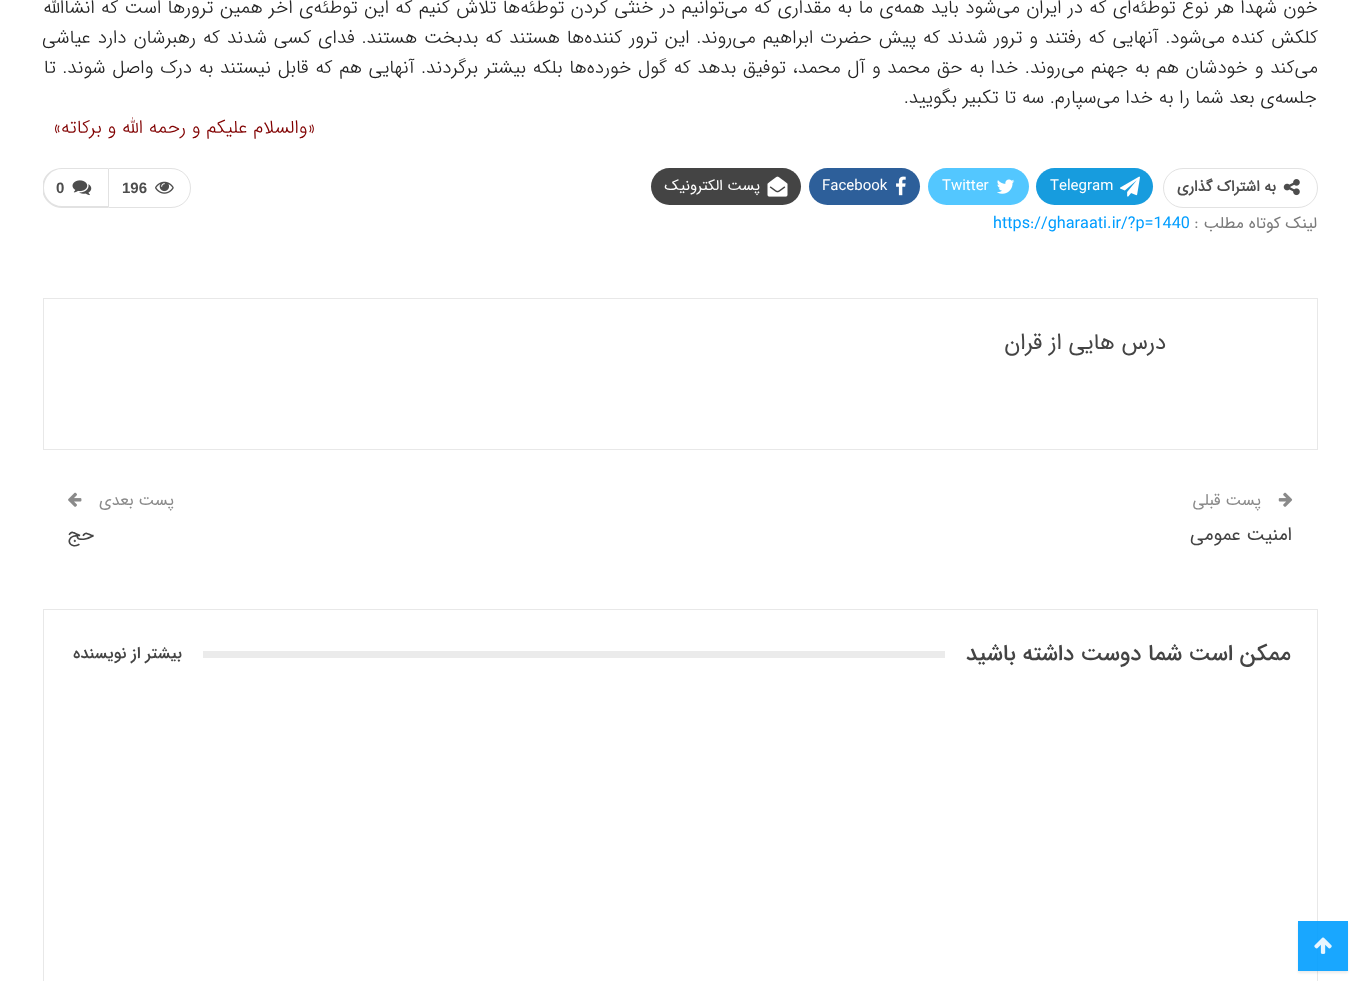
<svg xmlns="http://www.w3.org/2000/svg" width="1359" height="981">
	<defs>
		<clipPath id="clip1"><rect x="43" y="168" width="148" height="40" /></clipPath>
		<clipPath id="clip2"><path d="M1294 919H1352V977H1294ZM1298 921H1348V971H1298Z" clip-rule="evenodd" /></clipPath>
	</defs>
	<rect width="100%" height="100%" fill="#FFFFFF" />
	<g font-family="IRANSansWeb" font-size="18.75" font-weight="300" direction="rtl" fill="#222222">
		<text x="1318" y="13" word-spacing="0.6">خون شهدا هر نوع توطئه‌ای که در ایران می‌شود باید همه‌ی ما به مقداری که می‌توانیم در خنثی کردن توطئه‌ها تلاش کنیم که این توطئه‌ی اخر همین ترورها است که انشاالله</text>
		<text x="1318" y="43" word-spacing="1.2">کلکش کنده می‌شود. آنهایی که رفتند و ترور شدند که پیش حضرت ابراهیم می‌روند. این ترور کننده‌ها هستند که بدبخت هستند. فدای کسی شدند که رهبرشان دارد عیاشی</text>
		<text x="1318" y="73" word-spacing="1">می‌کند و خودشان هم به جهنم می‌روند. خدا به حق محمد و آل محمد، توفیق بدهد که گول خورده‌ها بلکه بیشتر برگردند. آنهایی هم که قابل نیستند به درک واصل شوند. تا</text>
		<text x="1317" y="103">جلسه‌ی بعد شما را به خدا می‌سپارم. سه تا تکبیر بگویید.</text>
	</g>
	<text x="315" y="133" font-family="IRANSansWeb" font-size="18.75" font-weight="300" direction="rtl" fill="#800000">«والسلام علیکم و رحمه الله و برکاته»</text>
	<rect x="1163.5" y="168.5" width="154" height="39" rx="19.5" fill="none" stroke="#E2E2E2" />
	<image x="1283" y="179" width="17" height="17" href="assets/img1.png" />
	<text x="1276" y="191" font-family="IRANSansWeb" font-size="15" font-weight="700" direction="rtl" fill="#4D4D4D">به اشتراک گذاری</text>
	<rect x="1036" y="168" width="117" height="37" rx="18.5" fill="#179CDE" />
	<image x="1120" y="176" width="20" height="21" href="assets/img2.png" />
	<text x="1050" y="190" font-family="IRANSansWeb" font-size="15" fill="#FFFFFF">Telegram</text>
	<rect x="928" y="168" width="101" height="37" rx="18.5" fill="#53C7FF" />
	<image x="997" y="179" width="18" height="15" href="assets/img3.png" />
	<text x="942" y="190" font-family="IRANSansWeb" font-size="15" fill="#FFFFFF">Twitter</text>
	<rect x="809" y="168" width="111" height="37" rx="18.5" fill="#2D5F9A" />
	<image x="896" y="176" width="10" height="20" href="assets/img4.png" />
	<text x="822" y="190" font-family="IRANSansWeb" font-size="15" fill="#FFFFFF">Facebook</text>
	<rect x="651" y="168" width="150" height="37" rx="18.5" fill="#444444" />
	<image x="767" y="176" width="21" height="21" href="assets/img5.png" />
	<text x="760" y="190" font-family="IRANSansWeb" font-size="15" direction="rtl" fill="#FFFFFF">پست الکترونیک</text>
	<path d="M108.5 168.5H171C182 168.5 190.5 177 190.5 188C190.5 199 182 207.5 171 207.5H108.5Z" fill="none" stroke="#E2E2E2" />
	<image x="155" y="181" width="19" height="13" href="assets/img6.png" />
	<text x="122" y="193" font-family="Liberation Sans" font-size="15" font-weight="700" fill="#4D4D4D">196</text>
	<g clip-path="url(#clip1)">
		<path d="M62 168H108V208H62C51 208 42 199 42 188C42 176 51 168 62 168ZM62 169H108V206H62C52 206 44 198 44 188C44 177 52 169 62 169Z" fill="#E2E2E2" fill-rule="evenodd" />
	</g>
	<image x="72" y="180" width="20" height="16" href="assets/img7.png" />
	<text x="56" y="193" font-family="Liberation Sans" font-size="15" font-weight="700" fill="#4D4D4D">0</text>
	<text x="1317" y="228" font-family="IRANSansWeb" font-size="16.25" direction="rtl" fill="#7B7B7B">لینک کوتاه مطلب :</text>
	<text x="993" y="228" font-family="IRANSansWeb" font-size="16.25" fill="#009DFF">https://gharaati.ir/?p=1440</text>
	<rect x="43.5" y="298.5" width="1274" height="151" fill="none" stroke="#E8E8E8" />
	<text x="1166" y="349" font-family="IRANSansWeb" font-size="22.5" direction="rtl" fill="#444444">درس هایی از قران</text>
	<image x="1278" y="492" width="15" height="15" href="assets/img8.png" />
	<text x="1261" y="505" font-family="IRANSansWeb" font-size="16.25" direction="rtl" fill="#8A8A8A">پست قبلی</text>
	<text x="1292" y="540" font-family="IRANSansWeb" font-size="18.75" direction="rtl" fill="#444444">امنیت عمومی</text>
	<text x="174" y="505" font-family="IRANSansWeb" font-size="16.25" direction="rtl" fill="#8A8A8A">پست بعدی</text>
	<image x="68" y="492" width="14" height="15" href="assets/img9.png" />
	<text x="94" y="540" font-family="IRANSansWeb" font-size="18.75" direction="rtl" fill="#444444">حج</text>
	<rect x="43.5" y="609.5" width="1274" height="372" fill="none" stroke="#E8E8E8" />
	<text x="1291" y="660" font-family="IRANSansWeb" font-size="22.5" font-weight="500" direction="rtl" fill="#444444">ممکن است شما دوست داشته باشید</text>
	<rect x="203" y="651" width="742" height="7" fill="#EBEBEB" />
	<text x="182" y="658" font-family="IRANSansWeb" font-size="16.5" font-weight="500" direction="rtl" fill="#444444">بیشتر از نویسنده</text>
	<g clip-path="url(#clip2)">
		<rect x="1298" y="923" width="50" height="50" fill="#000000" fill-opacity="0.08" filter="blur(1px)" />
	</g>
	<rect x="1298" y="921" width="50" height="50" fill="#009DFF" fill-opacity="0.9" />
	<image x="1314" y="937" width="18" height="17" href="assets/img10.png" />
</svg>
